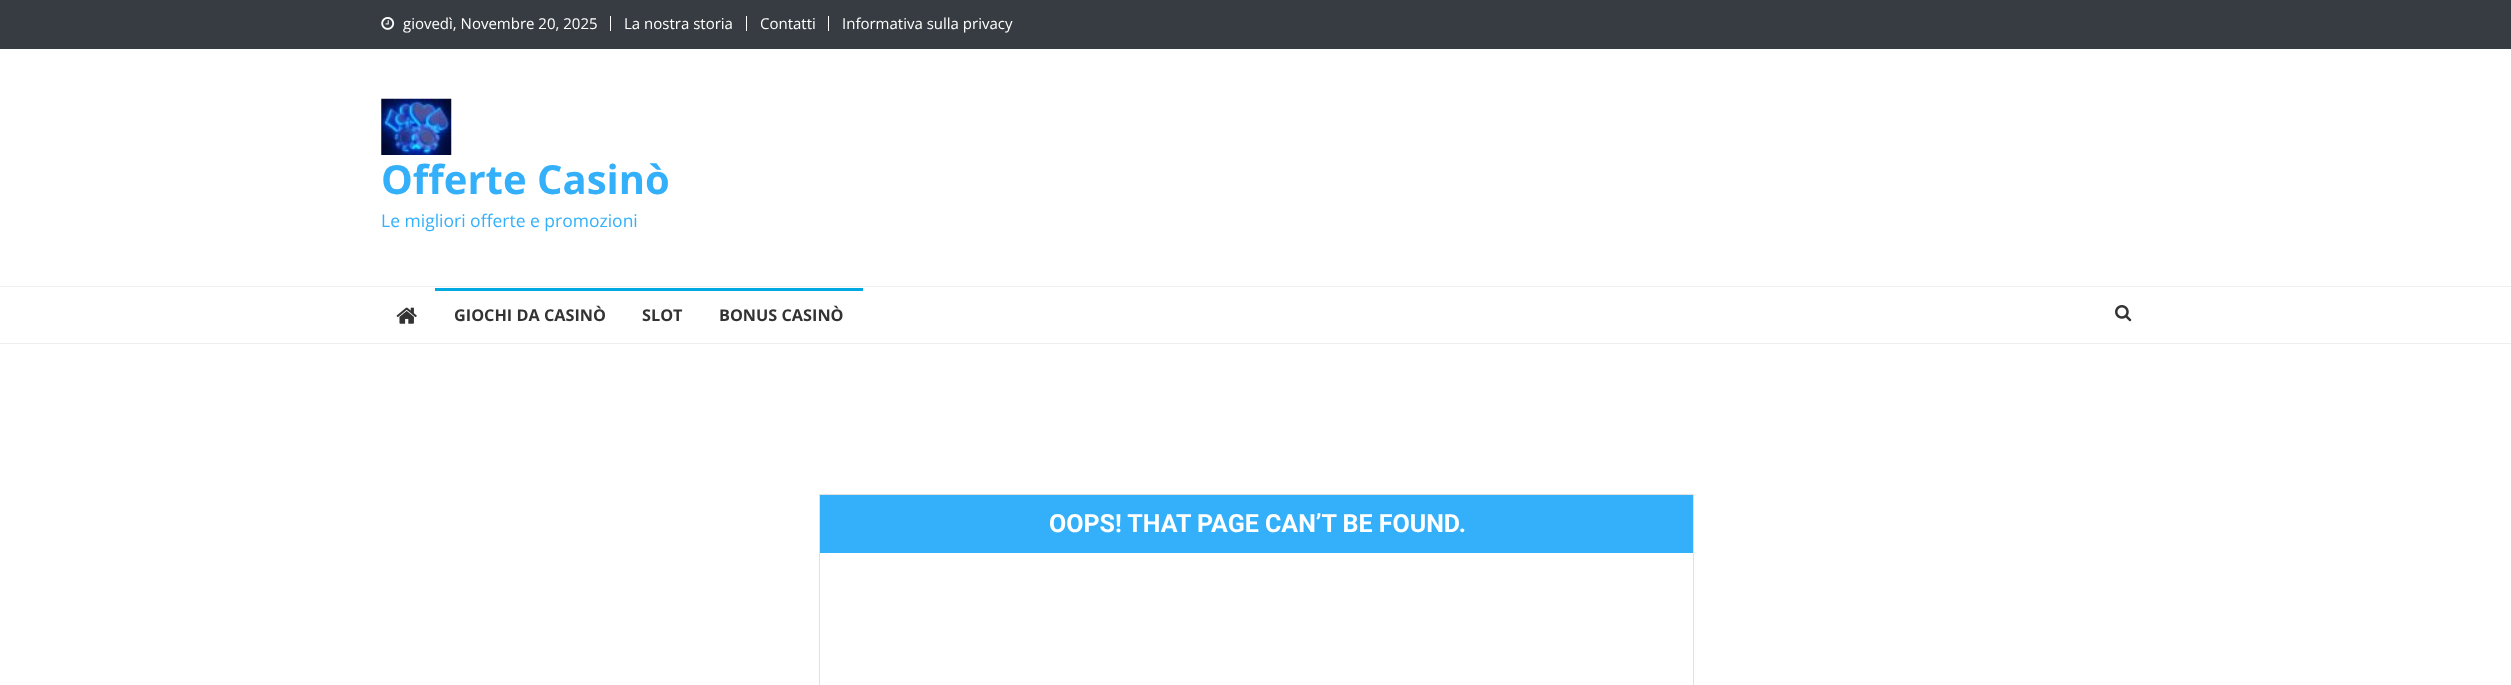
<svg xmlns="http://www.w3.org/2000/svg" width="2511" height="685">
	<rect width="100%" height="100%" fill="#FFFFFF" />
	<rect x="0" y="0" width="2511" height="49" fill="#373C42" />
	<image x="381" y="17" width="14" height="13" href="assets/img1.png" />
	<text x="403" y="29" font-family="Open Sans" font-size="15" fill="#FFFFFF">giovedì, Novembre 20, 2025</text>
	<rect x="610" y="16" width="1" height="15" fill="#FFFFFF" />
	<text x="624" y="29" font-family="Open Sans" font-size="15" fill="#FFFFFF">La nostra storia</text>
	<rect x="746" y="16" width="1" height="15" fill="#FFFFFF" />
	<text x="760" y="29" font-family="Open Sans" font-size="15" fill="#FFFFFF">Contatti</text>
	<rect x="828" y="16" width="1" height="15" fill="#FFFFFF" />
	<text x="842" y="29" font-family="Open Sans" font-size="15" fill="#FFFFFF">Informativa sulla privacy</text>
	<image x="381" y="98" width="71" height="57" href="assets/img2.png" />
	<text x="381" y="194" font-family="Open Sans" font-size="40" font-weight="700" fill="#34B0FA">Offerte Casinò</text>
	<text x="381" y="227" font-family="Open Sans" font-size="17.5" fill="#34B0FA">Le migliori offerte e promozioni</text>
	<rect x="0" y="286" width="2511" height="1" fill="#EEEEEE" />
	<rect x="0" y="343" width="2511" height="1" fill="#EEEEEE" />
	<image x="396" y="307" width="21" height="17" href="assets/img3.png" />
	<rect x="435" y="288" width="428" height="3" fill="#00A9E0" />
	<g font-family="Open Sans" font-size="16.25" font-weight="700" fill="#333333">
		<text x="454" y="321">GIOCHI DA CASINÒ</text>
		<text x="642" y="321">SLOT</text>
		<text x="719" y="321">BONUS CASINÒ</text>
	</g>
	<image x="2115" y="305" width="17" height="17" href="assets/img4.png" />
	<rect x="819.5" y="494.5" width="874" height="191" fill="none" stroke="#E1E1E1" />
	<rect x="820" y="495" width="873" height="58" fill="#34B0FA" />
	<text x="1049" y="532" font-family="Roboto" font-size="25" font-weight="700" fill="#FFFFFF">OOPS! THAT PAGE CAN’T BE FOUND.</text>
</svg>
